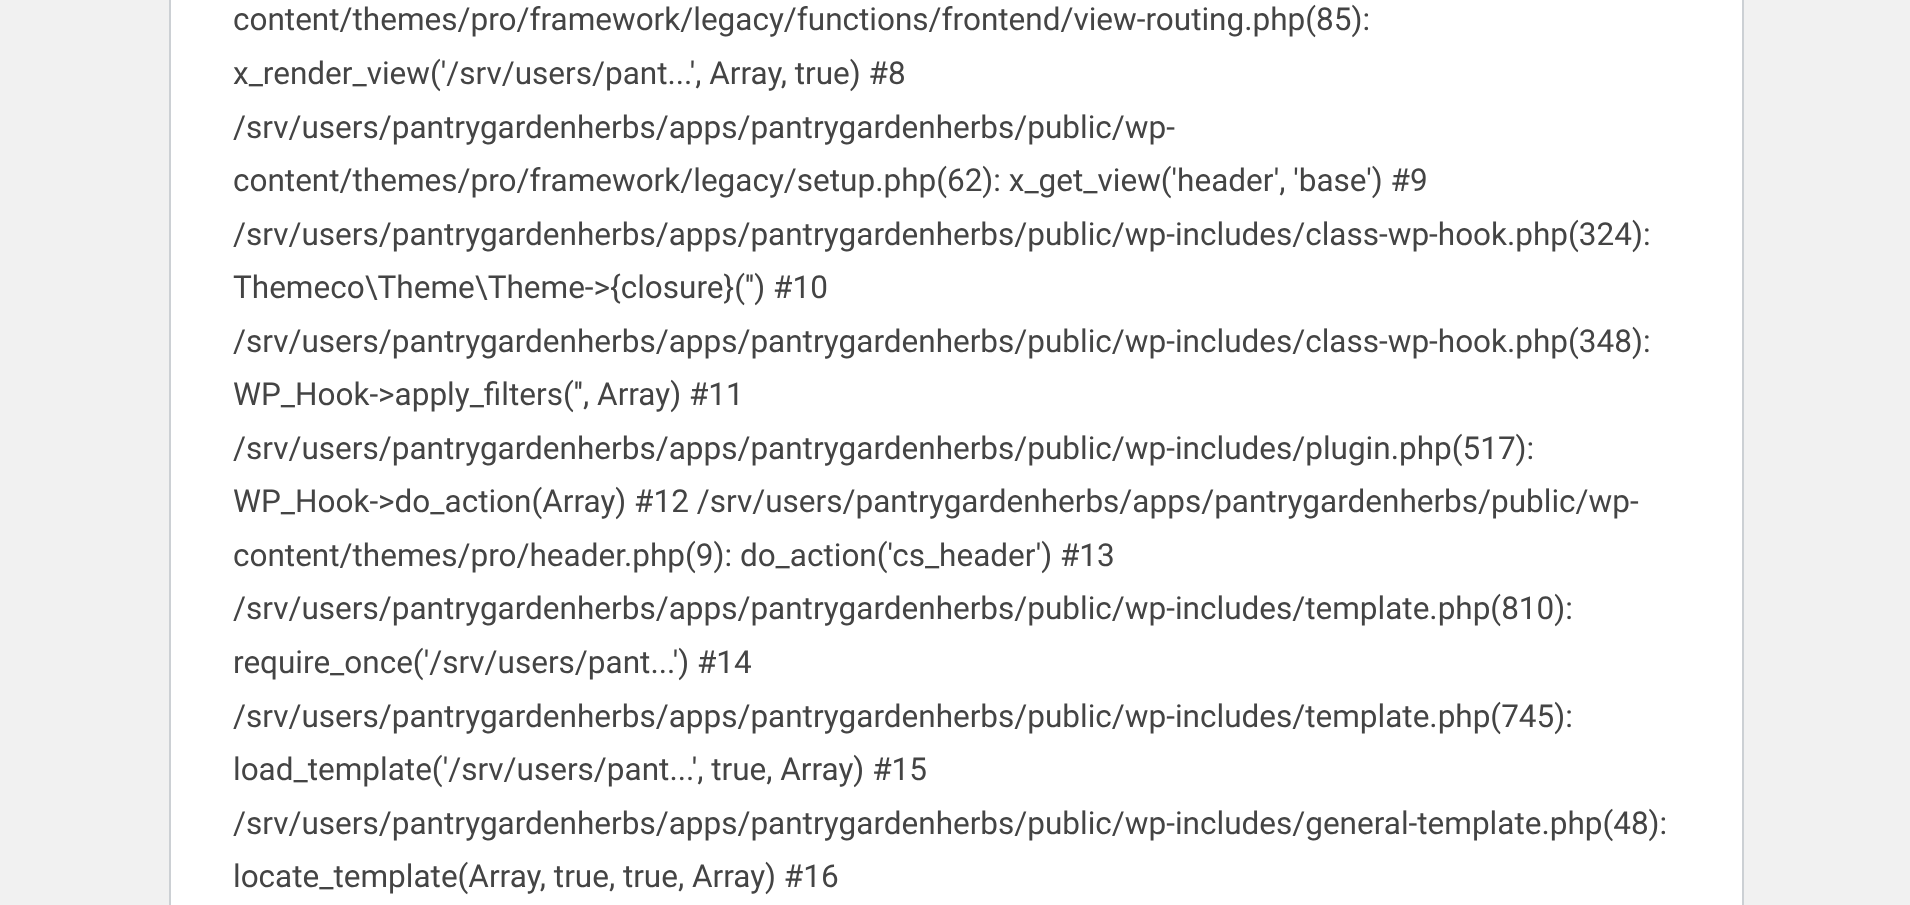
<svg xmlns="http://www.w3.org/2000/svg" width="1910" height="905">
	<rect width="100%" height="100%" fill="#F1F1F1" />
	<rect x="170" y="-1" width="1573" height="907" fill="#FFFFFF" stroke="#CCD0D4" stroke-width="2" />
	<g font-family="Roboto" font-size="31.5" fill="#444444">
		<text x="233" y="30">content/themes/pro/framework/legacy/functions/frontend/view-routing.php(85):</text>
		<text x="233" y="84">x_render_view('/srv/users/pant...', Array, true) #8</text>
		<text x="233" y="138">/srv/users/pantrygardenherbs/apps/pantrygardenherbs/public/wp-</text>
		<text x="233" y="191">content/themes/pro/framework/legacy/setup.php(62): x_get_view('header', 'base') #9</text>
		<text x="233" y="245">/srv/users/pantrygardenherbs/apps/pantrygardenherbs/public/wp-includes/class-wp-hook.php(324):</text>
		<text x="233" y="298">Themeco\Theme\Theme-&gt;{closure}('') #10</text>
		<text x="233" y="352">/srv/users/pantrygardenherbs/apps/pantrygardenherbs/public/wp-includes/class-wp-hook.php(348):</text>
		<text x="233" y="405">WP_Hook-&gt;apply_filters('', Array) #11</text>
		<text x="233" y="459">/srv/users/pantrygardenherbs/apps/pantrygardenherbs/public/wp-includes/plugin.php(517):</text>
		<text x="233" y="512">WP_Hook-&gt;do_action(Array) #12 /srv/users/pantrygardenherbs/apps/pantrygardenherbs/public/wp-</text>
		<text x="233" y="566">content/themes/pro/header.php(9): do_action('cs_header') #13</text>
		<text x="233" y="619">/srv/users/pantrygardenherbs/apps/pantrygardenherbs/public/wp-includes/template.php(810):</text>
		<text x="233" y="673">require_once('/srv/users/pant...') #14</text>
		<text x="233" y="727">/srv/users/pantrygardenherbs/apps/pantrygardenherbs/public/wp-includes/template.php(745):</text>
		<text x="233" y="780">load_template('/srv/users/pant...', true, Array) #15</text>
		<text x="233" y="834">/srv/users/pantrygardenherbs/apps/pantrygardenherbs/public/wp-includes/general-template.php(48):</text>
		<text x="233" y="887">locate_template(Array, true, true, Array) #16</text>
	</g>
</svg>
